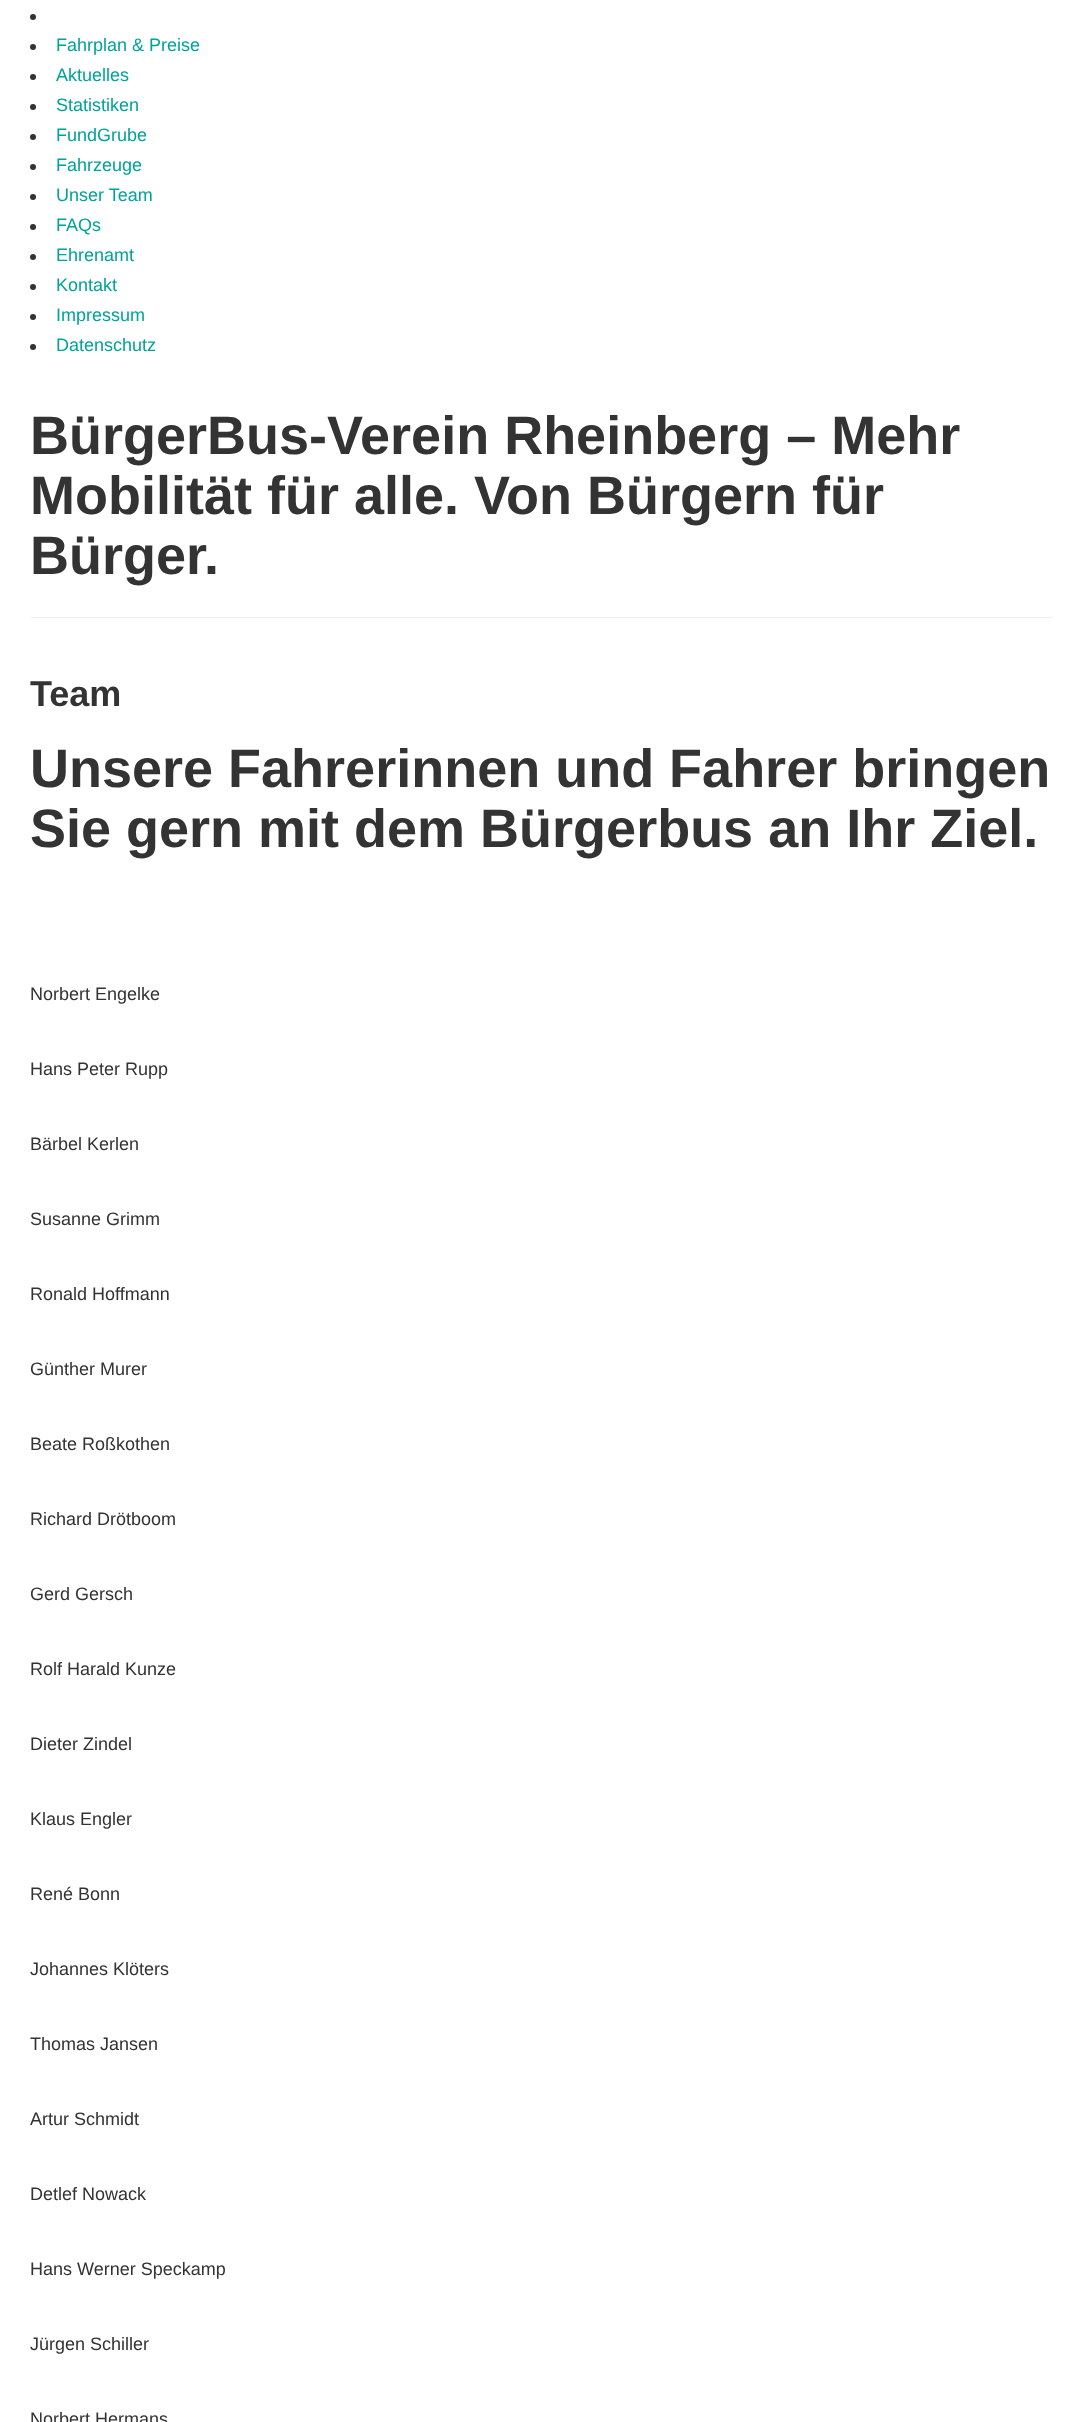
<svg xmlns="http://www.w3.org/2000/svg" width="1082" height="2422">
	<rect width="100%" height="100%" fill="#FFFFFF" />
	<circle cx="33" cy="17" r="3" fill="#333333" />
	<circle cx="33" cy="47" r="3" fill="#333333" />
	<text x="56" y="51" font-family="Liberation Sans" font-size="18" fill="#00A399">Fahrplan &amp; Preise</text>
	<circle cx="33" cy="77" r="3" fill="#333333" />
	<text x="56" y="81" font-family="Liberation Sans" font-size="18" fill="#00A399">Aktuelles</text>
	<circle cx="33" cy="107" r="3" fill="#333333" />
	<text x="56" y="111" font-family="Liberation Sans" font-size="18" fill="#00A399">Statistiken</text>
	<circle cx="33" cy="137" r="3" fill="#333333" />
	<text x="56" y="141" font-family="Liberation Sans" font-size="18" fill="#00A399">FundGrube</text>
	<circle cx="33" cy="167" r="3" fill="#333333" />
	<text x="56" y="171" font-family="Liberation Sans" font-size="18" fill="#00A399">Fahrzeuge</text>
	<circle cx="33" cy="197" r="3" fill="#333333" />
	<text x="56" y="201" font-family="Liberation Sans" font-size="18" fill="#00A399">Unser Team</text>
	<circle cx="33" cy="227" r="3" fill="#333333" />
	<text x="56" y="231" font-family="Liberation Sans" font-size="18" fill="#00A399">FAQs</text>
	<circle cx="33" cy="257" r="3" fill="#333333" />
	<text x="56" y="261" font-family="Liberation Sans" font-size="18" fill="#00A399">Ehrenamt</text>
	<circle cx="33" cy="287" r="3" fill="#333333" />
	<text x="56" y="291" font-family="Liberation Sans" font-size="18" fill="#00A399">Kontakt</text>
	<circle cx="33" cy="317" r="3" fill="#333333" />
	<text x="56" y="321" font-family="Liberation Sans" font-size="18" fill="#00A399">Impressum</text>
	<circle cx="33" cy="347" r="3" fill="#333333" />
	<text x="56" y="351" font-family="Liberation Sans" font-size="18" fill="#00A399">Datenschutz</text>
	<g font-family="Liberation Sans" font-size="54" font-weight="700" fill="#333333">
		<text x="30" y="454">BürgerBus-Verein Rheinberg – Mehr</text>
		<text x="30" y="514">Mobilität für alle. Von Bürgern für</text>
		<text x="30" y="574">Bürger.</text>
	</g>
	<rect x="30" y="617" width="1023" height="1" fill="#EEEEEE" />
	<text x="30" y="706" font-family="Liberation Sans" font-size="36" font-weight="700" fill="#333333">Team</text>
	<g font-family="Liberation Sans" font-size="54" font-weight="700" fill="#333333">
		<text x="30" y="787">Unsere Fahrerinnen und Fahrer bringen</text>
		<text x="30" y="847">Sie gern mit dem Bürgerbus an Ihr Ziel.</text>
	</g>
	<g font-family="Liberation Sans" font-size="18" fill="#333333">
		<text x="30" y="1000">Norbert Engelke</text>
		<text x="30" y="1075">Hans Peter Rupp</text>
		<text x="30" y="1150">Bärbel Kerlen</text>
		<text x="30" y="1225">Susanne Grimm</text>
		<text x="30" y="1300">Ronald Hoffmann</text>
		<text x="30" y="1375">Günther Murer</text>
		<text x="30" y="1450">Beate Roßkothen</text>
		<text x="30" y="1525">Richard Drötboom</text>
		<text x="30" y="1600">Gerd Gersch</text>
		<text x="30" y="1675">Rolf Harald Kunze</text>
		<text x="30" y="1750">Dieter Zindel</text>
		<text x="30" y="1825">Klaus Engler</text>
		<text x="30" y="1900">René Bonn</text>
		<text x="30" y="1975">Johannes Klöters</text>
		<text x="30" y="2050">Thomas Jansen</text>
		<text x="30" y="2125">Artur Schmidt</text>
		<text x="30" y="2200">Detlef Nowack</text>
		<text x="30" y="2275">Hans Werner Speckamp</text>
		<text x="30" y="2350">Jürgen Schiller</text>
		<text x="30" y="2425">Norbert Hermans</text>
	</g>
</svg>
